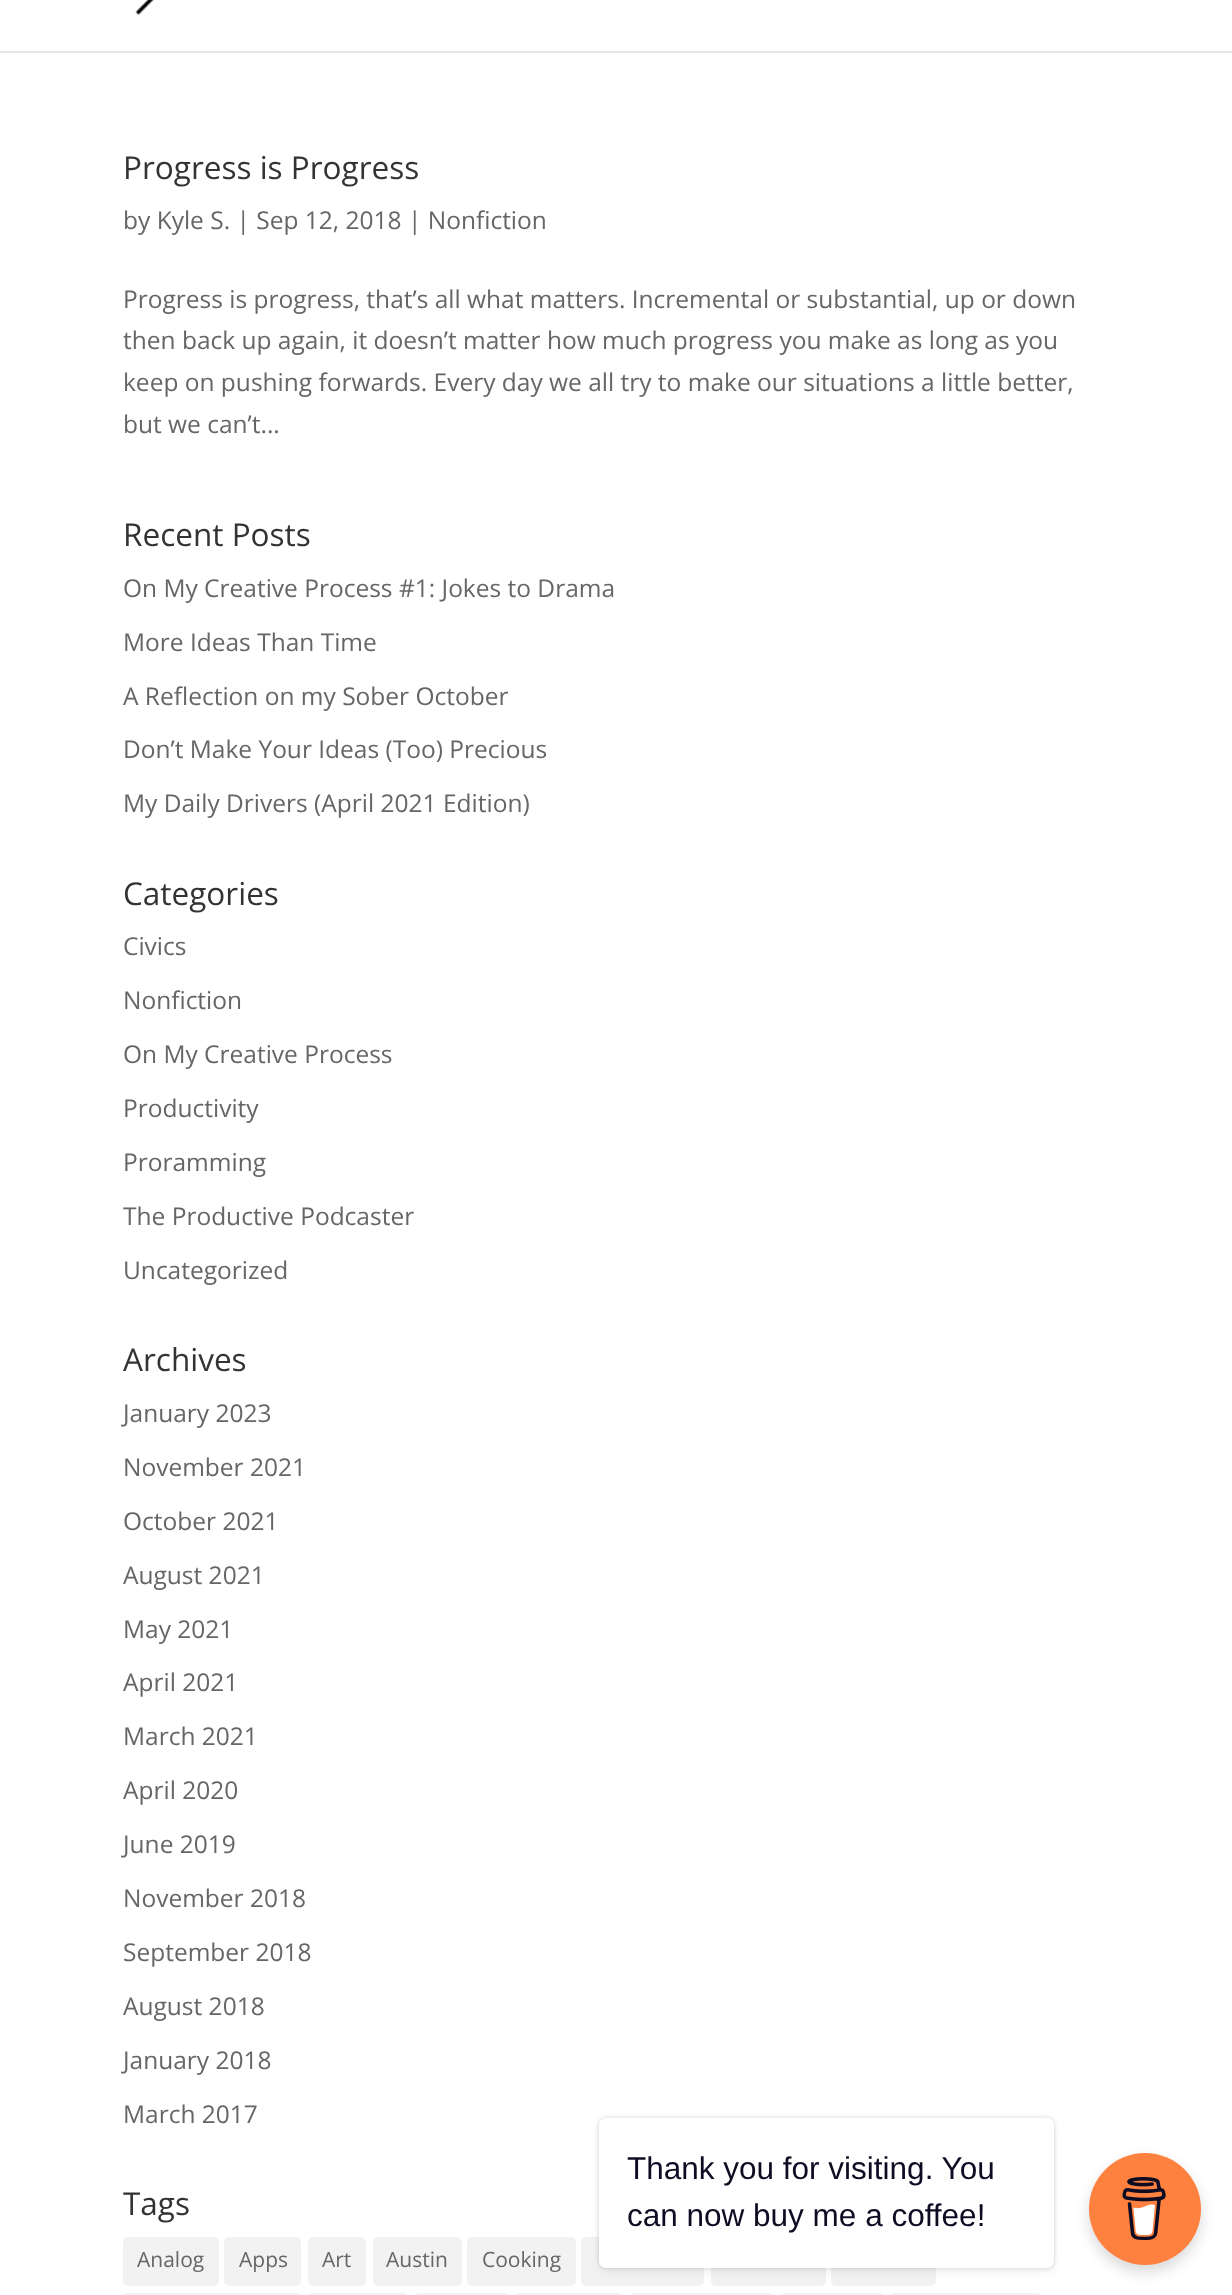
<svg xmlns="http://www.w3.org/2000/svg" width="1232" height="2295">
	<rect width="100%" height="100%" fill="#FFFFFF" />
	<rect x="0" y="51" width="1232" height="2" fill="#E6E6E6" />
	<image x="135" y="0" width="19" height="15" href="assets/img1.png" />
	<text x="123" y="179" font-family="Open Sans" font-size="31.5" fill="#333333">Progress is Progress</text>
	<g font-family="Open Sans" font-size="24.5" fill="#666666">
		<text x="123" y="229">by Kyle S. | Sep 12, 2018 | Nonfiction</text>
		<text x="123" y="308">Progress is progress, that’s all what matters. Incremental or substantial, up or down</text>
		<text x="123" y="349">then back up again, it doesn’t matter how much progress you make as long as you</text>
		<text x="123" y="391">keep on pushing forwards. Every day we all try to make our situations a little better,</text>
		<text x="123" y="433">but we can’t...</text>
	</g>
	<text x="123" y="546" font-family="Open Sans" font-size="31.5" fill="#333333">Recent Posts</text>
	<g font-family="Open Sans" font-size="24.5" fill="#666666">
		<text x="123" y="597">On My Creative Process #1: Jokes to Drama</text>
		<text x="123" y="651">More Ideas Than Time</text>
		<text x="123" y="705">A Reflection on my Sober October</text>
		<text x="123" y="758">Don’t Make Your Ideas (Too) Precious</text>
		<text x="123" y="812">My Daily Drivers (April 2021 Edition)</text>
	</g>
	<text x="123" y="905" font-family="Open Sans" font-size="31.5" fill="#333333">Categories</text>
	<g font-family="Open Sans" font-size="24.5" fill="#666666">
		<text x="123" y="955">Civics</text>
		<text x="123" y="1009">Nonfiction</text>
		<text x="123" y="1063">On My Creative Process</text>
		<text x="123" y="1117">Productivity</text>
		<text x="123" y="1171">Proramming</text>
		<text x="123" y="1225">The Productive Podcaster</text>
		<text x="123" y="1279">Uncategorized</text>
	</g>
	<text x="123" y="1371" font-family="Open Sans" font-size="31.5" fill="#333333">Archives</text>
	<g font-family="Open Sans" font-size="24.5" fill="#666666">
		<text x="123" y="1422">January 2023</text>
		<text x="123" y="1476">November 2021</text>
		<text x="123" y="1530">October 2021</text>
		<text x="123" y="1584">August 2021</text>
		<text x="123" y="1638">May 2021</text>
		<text x="123" y="1691">April 2021</text>
		<text x="123" y="1745">March 2021</text>
		<text x="123" y="1799">April 2020</text>
		<text x="123" y="1853">June 2019</text>
		<text x="123" y="1907">November 2018</text>
		<text x="123" y="1961">September 2018</text>
		<text x="123" y="2015">August 2018</text>
		<text x="123" y="2069">January 2018</text>
		<text x="123" y="2123">March 2017</text>
	</g>
	<text x="123" y="2215" font-family="Open Sans" font-size="31.5" fill="#333333">Tags</text>
	<rect x="123" y="2237" width="96" height="49" rx="5" fill="#F2F2F2" />
	<text x="137" y="2267" font-family="Open Sans" font-size="21" fill="#666666">Analog</text>
	<rect x="224" y="2237" width="77" height="49" rx="5" fill="#F2F2F2" />
	<text x="239" y="2267" font-family="Open Sans" font-size="21" fill="#666666">Apps</text>
	<rect x="308" y="2237" width="58" height="49" rx="5" fill="#F2F2F2" />
	<text x="322" y="2267" font-family="Open Sans" font-size="21" fill="#666666">Art</text>
	<rect x="373" y="2237" width="89" height="49" rx="5" fill="#F2F2F2" />
	<text x="386" y="2267" font-family="Open Sans" font-size="21" fill="#666666">Austin</text>
	<rect x="467" y="2237" width="109" height="49" rx="5" fill="#F2F2F2" />
	<text x="482" y="2267" font-family="Open Sans" font-size="21" fill="#666666">Cooking</text>
	<rect x="581" y="2237" width="123" height="49" rx="5" fill="#F2F2F2" />
	<rect x="711" y="2237" width="115" height="49" rx="5" fill="#F2F2F2" />
	<rect x="831" y="2237" width="105" height="49" rx="5" fill="#F2F2F2" />
	<rect x="123" y="2293" width="178" height="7" rx="5" fill="#F2F2F2" />
	<rect x="308" y="2293" width="100" height="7" rx="5" fill="#F2F2F2" />
	<rect x="415" y="2293" width="94" height="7" rx="5" fill="#F2F2F2" />
	<rect x="515" y="2293" width="108" height="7" rx="5" fill="#F2F2F2" />
	<rect x="630" y="2293" width="144" height="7" rx="5" fill="#F2F2F2" />
	<rect x="781" y="2293" width="103" height="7" rx="5" fill="#F2F2F2" />
	<rect x="889" y="2293" width="152" height="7" rx="5" fill="#F2F2F2" />
	<rect x="1089" y="2160" width="112" height="112" rx="56" fill="#000000" fill-opacity="0.15" filter="blur(7px)" />
	<circle cx="1145" cy="2209" r="56" fill="#FF813F" />
	<image x="1122" y="2177" width="44" height="63" href="assets/img2.png" />
	<rect x="599" y="2118" width="455" height="150" rx="7" fill="#000000" fill-opacity="0.15" filter="blur(2px)" />
	<rect x="599" y="2121" width="455" height="151" rx="7" fill="#000000" fill-opacity="0.05" filter="blur(4.5px)" />
	<rect x="599" y="2118" width="455" height="150" rx="7" fill="#FFFFFF" />
	<g font-family="Liberation Sans" font-size="31.5" fill="#0D0C22">
		<text x="627" y="2179">Thank you for visiting. You</text>
		<text x="627" y="2226">can now buy me a coffee!</text>
	</g>
</svg>
